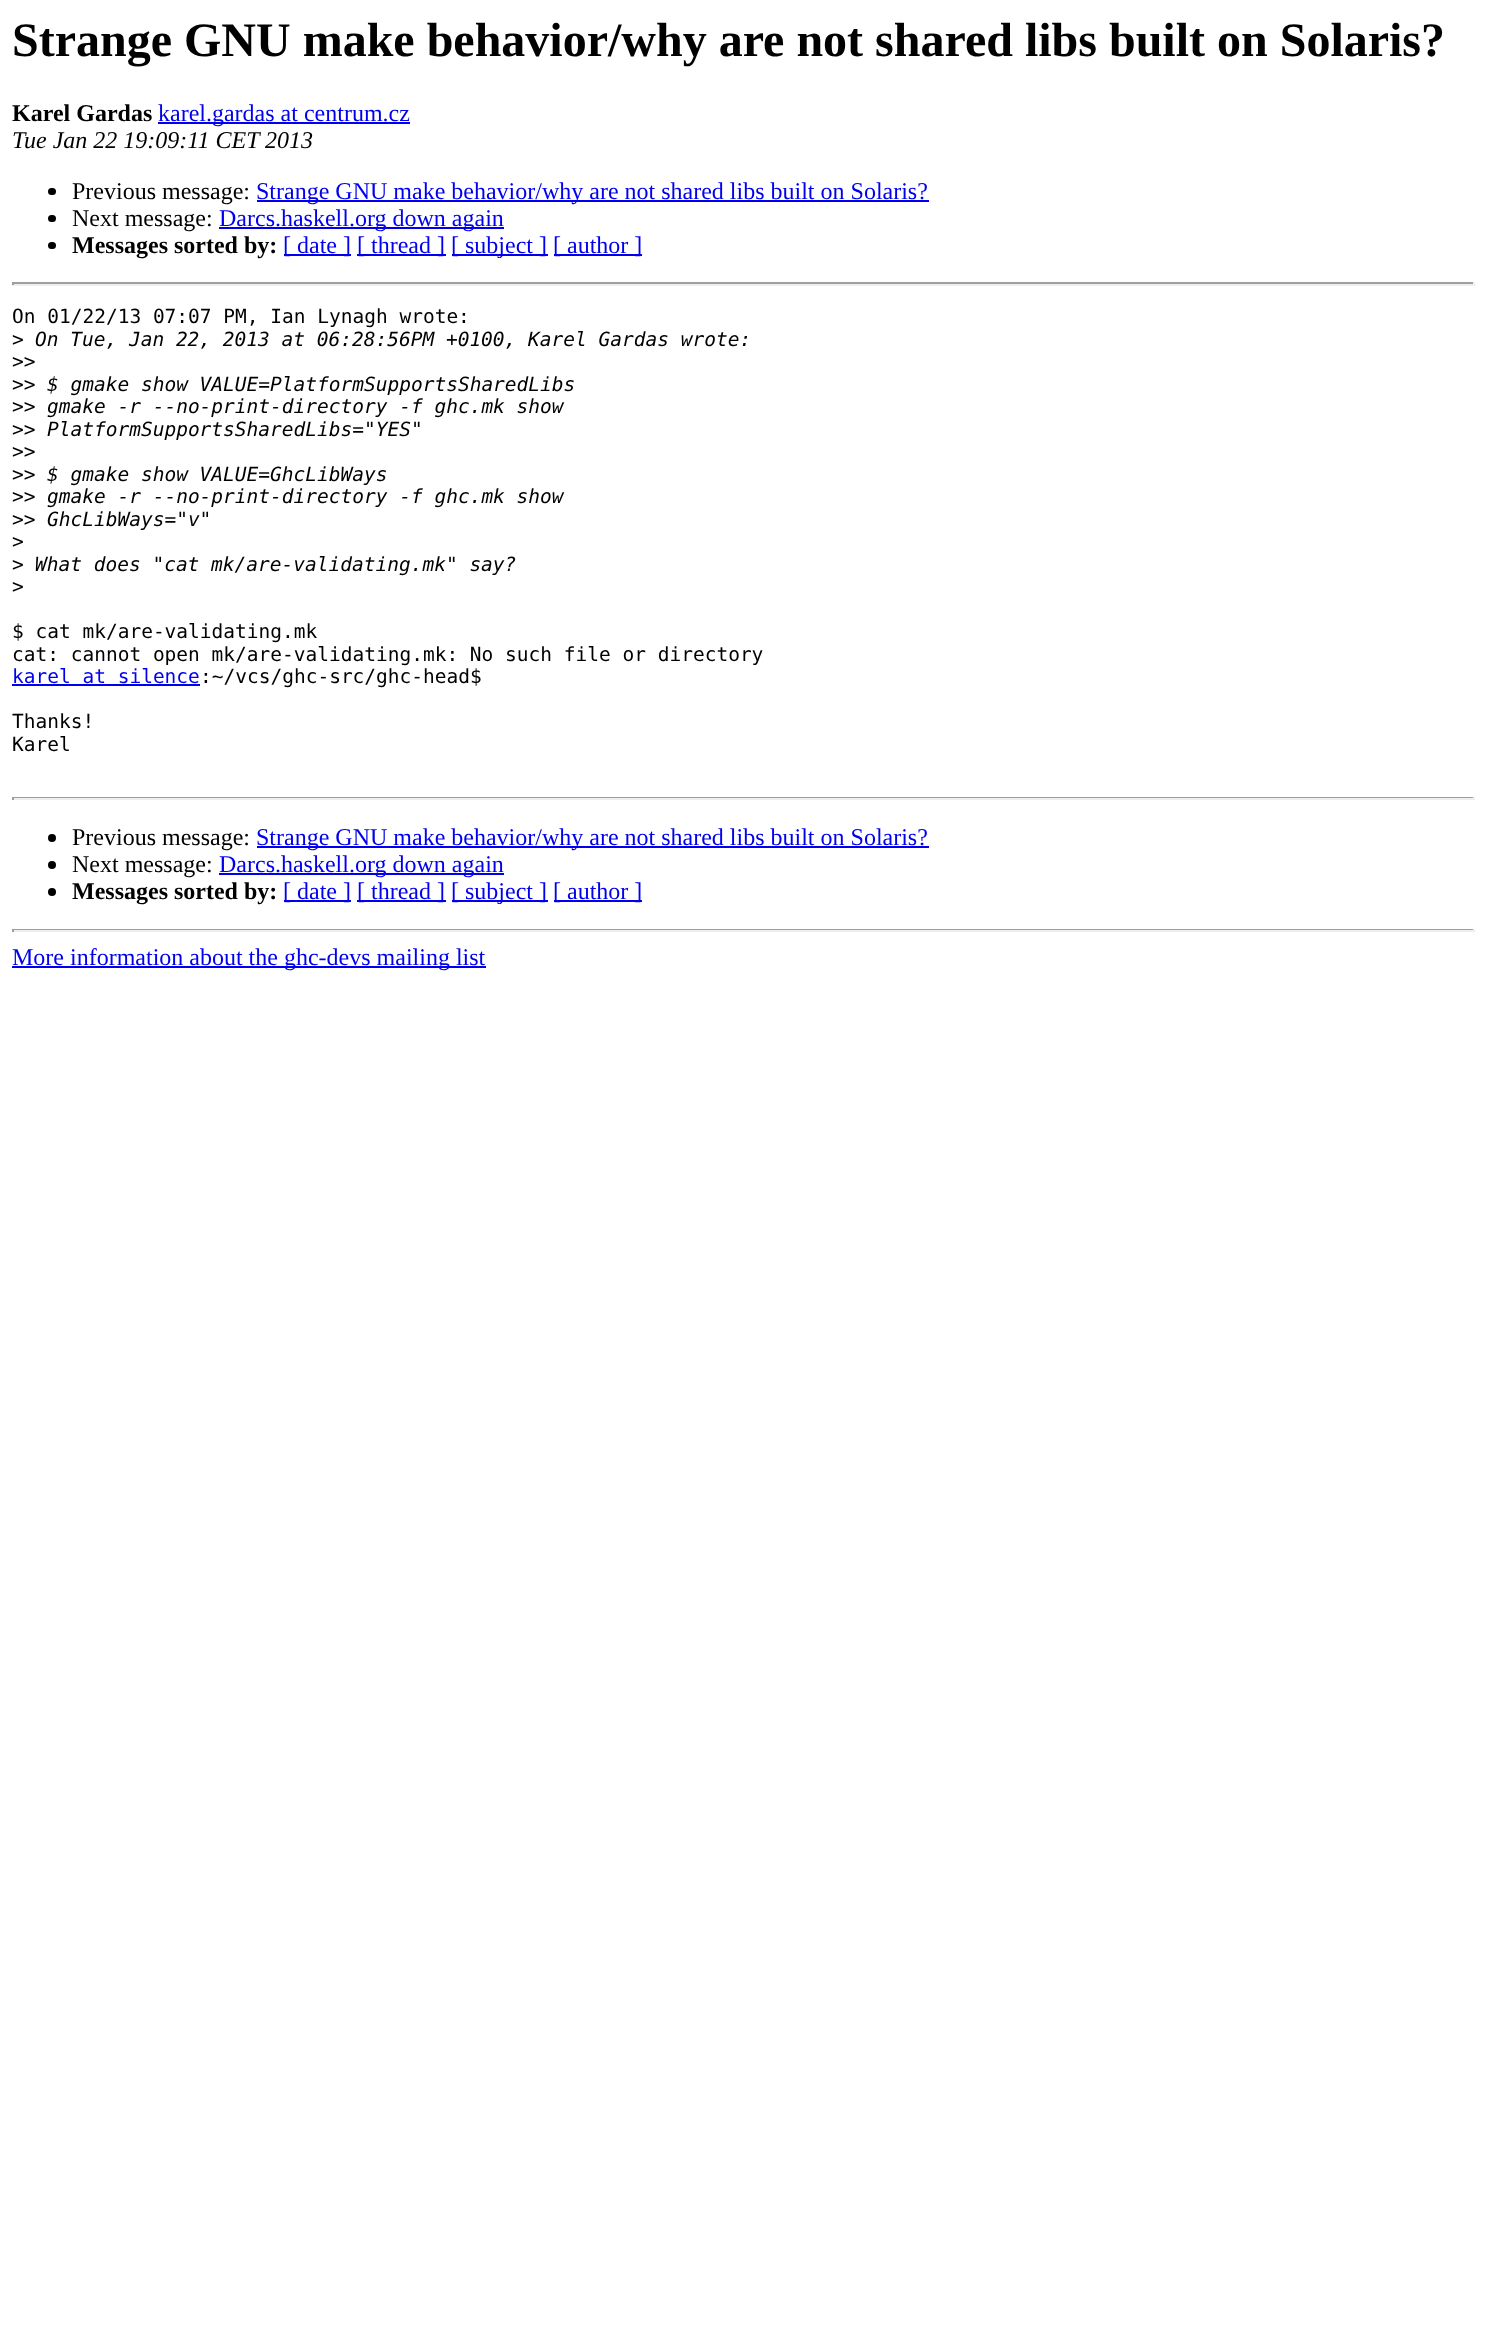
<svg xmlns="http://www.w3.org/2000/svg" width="1486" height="2344">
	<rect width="100%" height="100%" fill="#FFFFFF" />
	<text x="12" y="56" font-family="Liberation Serif" font-size="48" font-weight="700" fill="#000000">Strange GNU make behavior/why are not shared libs built on Solaris?</text>
	<text x="12" y="121" font-family="Liberation Serif" font-size="24" font-weight="700" fill="#000000">Karel Gardas</text>
	<rect x="158" y="122" width="252" height="2" fill="#0000EE" />
	<text x="158" y="121" font-family="Liberation Serif" font-size="24" fill="#0000EE">karel.gardas at centrum.cz</text>
	<text x="12" y="148" font-family="Liberation Serif" font-size="24" font-style="italic" fill="#000000">Tue Jan 22 19:09:11 CET 2013</text>
	<rect x="48" y="188" width="8" height="7" rx="3.5" fill="#000000" />
	<text x="72" y="199" font-family="Liberation Serif" font-size="24" fill="#000000">Previous message:</text>
	<rect x="257" y="200" width="672" height="2" fill="#0000EE" />
	<text x="256" y="199" font-family="Liberation Serif" font-size="24" fill="#0000EE">Strange GNU make behavior/why are not shared libs built on Solaris?</text>
	<rect x="48" y="215" width="8" height="7" rx="3.5" fill="#000000" />
	<text x="72" y="226" font-family="Liberation Serif" font-size="24" fill="#000000">Next message:</text>
	<rect x="219" y="227" width="285" height="2" fill="#0000EE" />
	<text x="219" y="226" font-family="Liberation Serif" font-size="24" fill="#0000EE">Darcs.haskell.org down again</text>
	<rect x="48" y="242" width="8" height="7" rx="3.5" fill="#000000" />
	<text x="72" y="253" font-family="Liberation Serif" font-size="24" font-weight="700" fill="#000000">Messages sorted by:</text>
	<rect x="284" y="254" width="67" height="2" fill="#0000EE" />
	<text x="283" y="253" font-family="Liberation Serif" font-size="24" fill="#0000EE">[ date ]</text>
	<rect x="357" y="254" width="89" height="2" fill="#0000EE" />
	<text x="357" y="253" font-family="Liberation Serif" font-size="24" fill="#0000EE">[ thread ]</text>
	<rect x="452" y="254" width="96" height="2" fill="#0000EE" />
	<text x="451" y="253" font-family="Liberation Serif" font-size="24" fill="#0000EE">[ subject ]</text>
	<rect x="554" y="254" width="88" height="2" fill="#0000EE" />
	<text x="553" y="253" font-family="Liberation Serif" font-size="24" fill="#0000EE">[ author ]</text>
	<rect x="12" y="282" width="1463" height="2" fill="#9F9F9F" />
	<rect x="1473" y="282" width="2" height="3" fill="#EEEEEE" />
	<rect x="12" y="284" width="1463" height="2" fill="#EEEEEE" />
	<rect x="12" y="282" width="2" height="3" fill="#9F9F9F" />
	<g font-family="DejaVu Sans Mono" font-size="19.5" fill="#000000">
		<text x="12" y="323">On 01/22/13 07:07 PM, Ian Lynagh wrote:</text>
		<text x="12" y="346">&gt;</text>
	</g>
	<text x="35" y="346" font-family="DejaVu Sans Mono" font-size="19.5" font-style="italic" fill="#000000">On Tue, Jan 22, 2013 at 06:28:56PM +0100, Karel Gardas wrote:</text>
	<g font-family="DejaVu Sans Mono" font-size="19.5" fill="#000000">
		<text x="12" y="368">&gt;&gt;</text>
		<text x="12" y="391">&gt;&gt;</text>
	</g>
	<text x="47" y="391" font-family="DejaVu Sans Mono" font-size="19.5" font-style="italic" fill="#000000">$ gmake show VALUE=PlatformSupportsSharedLibs</text>
	<text x="12" y="413" font-family="DejaVu Sans Mono" font-size="19.5" fill="#000000">&gt;&gt;</text>
	<text x="47" y="413" font-family="DejaVu Sans Mono" font-size="19.5" font-style="italic" fill="#000000">gmake -r --no-print-directory -f ghc.mk show</text>
	<text x="12" y="436" font-family="DejaVu Sans Mono" font-size="19.5" fill="#000000">&gt;&gt;</text>
	<text x="47" y="436" font-family="DejaVu Sans Mono" font-size="19.5" font-style="italic" fill="#000000">PlatformSupportsSharedLibs="YES"</text>
	<g font-family="DejaVu Sans Mono" font-size="19.5" fill="#000000">
		<text x="12" y="458">&gt;&gt;</text>
		<text x="12" y="481">&gt;&gt;</text>
	</g>
	<text x="47" y="481" font-family="DejaVu Sans Mono" font-size="19.5" font-style="italic" fill="#000000">$ gmake show VALUE=GhcLibWays</text>
	<text x="12" y="503" font-family="DejaVu Sans Mono" font-size="19.5" fill="#000000">&gt;&gt;</text>
	<text x="47" y="503" font-family="DejaVu Sans Mono" font-size="19.5" font-style="italic" fill="#000000">gmake -r --no-print-directory -f ghc.mk show</text>
	<text x="12" y="526" font-family="DejaVu Sans Mono" font-size="19.5" fill="#000000">&gt;&gt;</text>
	<text x="47" y="526" font-family="DejaVu Sans Mono" font-size="19.5" font-style="italic" fill="#000000">GhcLibWays="v"</text>
	<g font-family="DejaVu Sans Mono" font-size="19.5" fill="#000000">
		<text x="12" y="548">&gt;</text>
		<text x="12" y="571">&gt;</text>
	</g>
	<text x="35" y="571" font-family="DejaVu Sans Mono" font-size="19.5" font-style="italic" fill="#000000">What does "cat mk/are-validating.mk" say?</text>
	<g font-family="DejaVu Sans Mono" font-size="19.5" fill="#000000">
		<text x="12" y="593">&gt;</text>
		<text x="12" y="638">$ cat mk/are-validating.mk</text>
		<text x="12" y="661">cat: cannot open mk/are-validating.mk: No such file or directory</text>
	</g>
	<text x="12" y="683" font-family="DejaVu Sans Mono" font-size="19.5" fill="#0000EE">karel at silence</text>
	<rect x="12" y="684" width="188" height="2" fill="#0000EE" />
	<g font-family="DejaVu Sans Mono" font-size="19.5" fill="#000000">
		<text x="200" y="683">:~/vcs/ghc-src/ghc-head$</text>
		<text x="12" y="728">Thanks!</text>
		<text x="12" y="751">Karel</text>
	</g>
	<rect x="12" y="797" width="1463" height="1" fill="#9F9F9F" />
	<rect x="1473" y="797" width="2" height="3" fill="#EEEEEE" />
	<rect x="12" y="798" width="1463" height="2" fill="#EEEEEE" />
	<rect x="12" y="797" width="2" height="3" fill="#9F9F9F" />
	<circle cx="52" cy="838" r="4" fill="#000000" />
	<text x="72" y="845" font-family="Liberation Serif" font-size="24" fill="#000000">Previous message:</text>
	<rect x="257" y="846" width="672" height="2" fill="#0000EE" />
	<text x="256" y="845" font-family="Liberation Serif" font-size="24" fill="#0000EE">Strange GNU make behavior/why are not shared libs built on Solaris?</text>
	<circle cx="52" cy="865" r="4" fill="#000000" />
	<text x="72" y="872" font-family="Liberation Serif" font-size="24" fill="#000000">Next message:</text>
	<rect x="219" y="873" width="285" height="2" fill="#0000EE" />
	<text x="219" y="872" font-family="Liberation Serif" font-size="24" fill="#0000EE">Darcs.haskell.org down again</text>
	<circle cx="52" cy="892" r="4" fill="#000000" />
	<text x="72" y="899" font-family="Liberation Serif" font-size="24" font-weight="700" fill="#000000">Messages sorted by:</text>
	<rect x="284" y="900" width="67" height="2" fill="#0000EE" />
	<text x="283" y="899" font-family="Liberation Serif" font-size="24" fill="#0000EE">[ date ]</text>
	<rect x="357" y="900" width="89" height="2" fill="#0000EE" />
	<text x="357" y="899" font-family="Liberation Serif" font-size="24" fill="#0000EE">[ thread ]</text>
	<rect x="452" y="900" width="96" height="2" fill="#0000EE" />
	<text x="451" y="899" font-family="Liberation Serif" font-size="24" fill="#0000EE">[ subject ]</text>
	<rect x="554" y="900" width="88" height="2" fill="#0000EE" />
	<text x="553" y="899" font-family="Liberation Serif" font-size="24" fill="#0000EE">[ author ]</text>
	<rect x="12" y="929" width="1463" height="1" fill="#9F9F9F" />
	<rect x="1473" y="929" width="2" height="3" fill="#EEEEEE" />
	<rect x="12" y="930" width="1463" height="2" fill="#EEEEEE" />
	<rect x="12" y="929" width="2" height="3" fill="#9F9F9F" />
	<rect x="12" y="966" width="474" height="2" fill="#0000EE" />
	<text x="12" y="965" font-family="Liberation Serif" font-size="24" fill="#0000EE">More information about the ghc-devs mailing list</text>
</svg>
